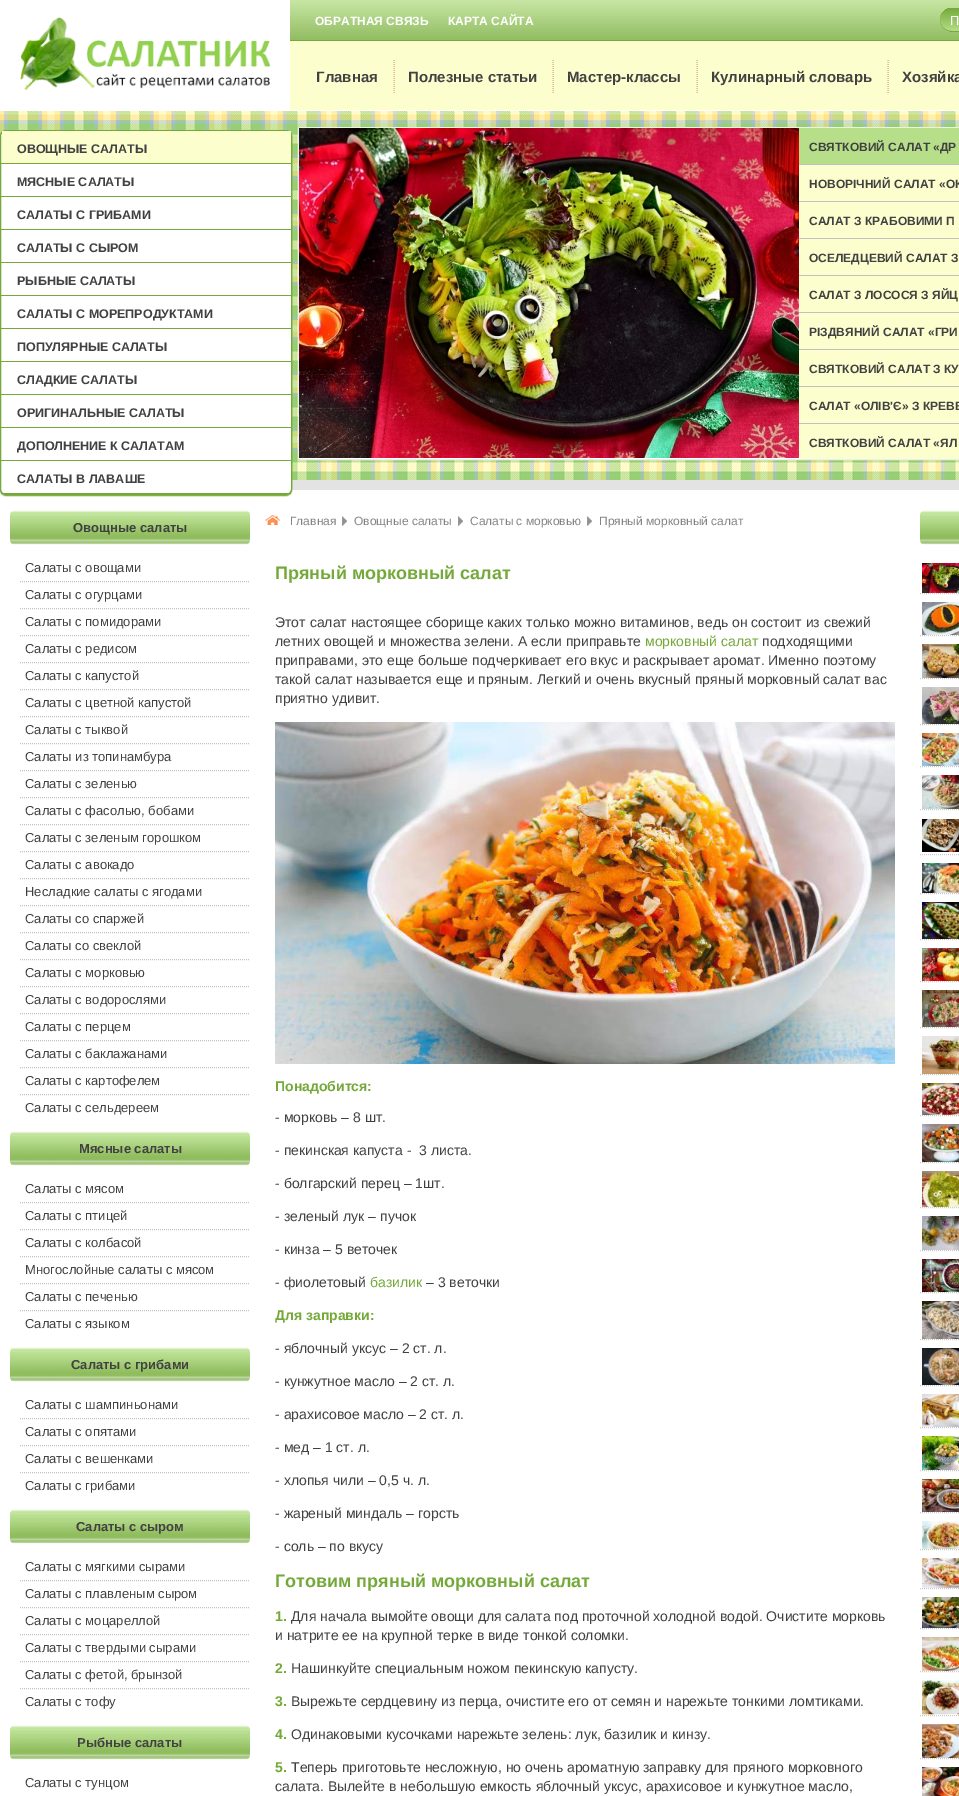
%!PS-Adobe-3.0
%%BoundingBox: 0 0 959 1796
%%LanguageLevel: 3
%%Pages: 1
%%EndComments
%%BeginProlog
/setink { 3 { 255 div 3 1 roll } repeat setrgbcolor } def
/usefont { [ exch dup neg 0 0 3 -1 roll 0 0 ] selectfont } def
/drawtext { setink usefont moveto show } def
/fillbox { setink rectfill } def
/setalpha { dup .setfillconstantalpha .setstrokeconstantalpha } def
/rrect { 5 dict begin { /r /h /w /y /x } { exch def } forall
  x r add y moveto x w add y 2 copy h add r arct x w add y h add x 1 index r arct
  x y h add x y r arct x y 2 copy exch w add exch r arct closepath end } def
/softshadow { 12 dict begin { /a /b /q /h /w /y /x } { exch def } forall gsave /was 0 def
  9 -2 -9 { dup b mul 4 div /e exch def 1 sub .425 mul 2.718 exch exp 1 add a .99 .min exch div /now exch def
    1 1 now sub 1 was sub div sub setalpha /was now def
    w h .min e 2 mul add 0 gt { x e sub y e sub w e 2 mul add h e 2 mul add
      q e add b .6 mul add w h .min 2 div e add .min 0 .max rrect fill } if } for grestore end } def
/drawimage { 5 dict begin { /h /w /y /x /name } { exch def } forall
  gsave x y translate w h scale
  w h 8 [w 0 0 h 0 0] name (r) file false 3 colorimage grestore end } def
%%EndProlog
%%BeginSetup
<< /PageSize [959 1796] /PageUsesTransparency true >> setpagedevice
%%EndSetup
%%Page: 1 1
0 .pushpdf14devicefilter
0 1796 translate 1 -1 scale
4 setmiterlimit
0 0 959 1796 253 254 206 fillbox
gsave 290 0 moveto 959 0 lineto 959 40 lineto 290 40 lineto closepath clip newpath
<< /ShadingType 2 /ColorSpace /DeviceRGB /Coords [480 0 480 40] /Extend [true true] /Function << /FunctionType 2 /Domain [0 1] /C0 [0.78 0.902 0.643] /C1 [0.573 0.741 0.384] /N 1 >> >> shfill grestore
290 40 669 1 116 169 58 fillbox
(ОБРАТНАЯ СВЯЗЬ) 315 25 /LiberationSans-Bold 12 255 255 255 drawtext
(КАРТА САЙТА) 448 25 /LiberationSans-Bold 12 255 255 255 drawtext
gsave 940 8 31 24 12 rrect clip newpath
<< /ShadingType 2 /ColorSpace /DeviceRGB /Coords [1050 8 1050 32] /Extend [true true] /Function << /FunctionType 2 /Domain [0 1] /C0 [0.455 0.663 0.227] /C1 [0.722 0.878 0.549] /N 1 >> >> shfill grestore
118 168 58 setink
940 20 moveto 940 26 945 32 952 32 curveto 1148 32 lineto 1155 32 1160 26 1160 20 curveto 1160 26 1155 31 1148 31 curveto 952 31 lineto 945 31 940 26 940 20 curveto closepath fill
(П) 950 25 /LiberationSans-Regular 13 255 255 255 drawtext
0 0 290 110 255 255 255 fillbox
(assets/img1.rgb) 20 17 250 73 drawimage
(Главная) 316 82 /LiberationSans-Bold 15 65 65 65 drawtext
(assets/img2.rgb) 393 60 2 33 drawimage
(Полезные статьи) 408 82 /LiberationSans-Bold 15 65 65 65 drawtext
(assets/img2.rgb) 552 60 2 33 drawimage
(Мастер-классы) 567 82 /LiberationSans-Bold 15 65 65 65 drawtext
(assets/img2.rgb) 696 60 2 33 drawimage
(Кулинарный словарь) 711 82 /LiberationSans-Bold 15 65 65 65 drawtext
(assets/img2.rgb) 887 60 2 33 drawimage
(Хозяйка) 902 82 /LiberationSans-Bold 15 65 65 65 drawtext
(assets/img3.rgb) 0 110 959 370 drawimage
0 480 959 10 227 227 227 fillbox
0 490 959 1306 255 255 255 fillbox
116 169 58 setink
0 131 292 365 6 0.5 1 softshadow
255 255 255 setink
0.5 130.5 291 364 5.5 rrect gsave fill grestore
116 169 58 setink
stroke
1 163 290 1 116 169 58 fillbox
2 131 289 32 253 254 206 fillbox
(ОВОЩНЫЕ САЛАТЫ) 17 153 /LiberationSans-Bold 12.5 65 65 65 drawtext
1 196 290 1 116 169 58 fillbox
(МЯСНЫЕ САЛАТЫ) 17 186 /LiberationSans-Bold 12.5 65 65 65 drawtext
1 229 290 1 116 169 58 fillbox
(САЛАТЫ С ГРИБАМИ) 17 219 /LiberationSans-Bold 12.5 65 65 65 drawtext
1 262 290 1 116 169 58 fillbox
(САЛАТЫ С СЫРОМ) 17 252 /LiberationSans-Bold 12.5 65 65 65 drawtext
1 295 290 1 116 169 58 fillbox
(РЫБНЫЕ САЛАТЫ) 17 285 /LiberationSans-Bold 12.5 65 65 65 drawtext
1 328 290 1 116 169 58 fillbox
(САЛАТЫ С МОРЕПРОДУКТАМИ) 17 318 /LiberationSans-Bold 12.5 65 65 65 drawtext
1 361 290 1 116 169 58 fillbox
(ПОПУЛЯРНЫЕ САЛАТЫ) 17 351 /LiberationSans-Bold 12.5 65 65 65 drawtext
1 394 290 1 116 169 58 fillbox
(СЛАДКИЕ САЛАТЫ) 17 384 /LiberationSans-Bold 12.5 65 65 65 drawtext
1 427 290 1 116 169 58 fillbox
(ОРИГИНАЛЬНЫЕ САЛАТЫ) 17 417 /LiberationSans-Bold 12.5 65 65 65 drawtext
1 460 290 1 116 169 58 fillbox
(ДОПОЛНЕНИЕ К САЛАТАМ) 17 450 /LiberationSans-Bold 12.5 65 65 65 drawtext
1 493 290 1 116 169 58 fillbox
(САЛАТЫ В ЛАВАШЕ) 17 483 /LiberationSans-Bold 12.5 65 65 65 drawtext
255 255 255 setink
298.5 127.5 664 332 2.5 rrect gsave fill grestore
238 238 238 setink
stroke
(assets/img4.rgb) 299 128 500 330 drawimage
799 128 160 36 183 223 138 fillbox
799 164 160 1 192 192 192 fillbox
(СВЯТКОВИЙ САЛАТ «ДР) 809 151 /LiberationSans-Bold 12 65 65 65 drawtext
799 165 160 36 253 254 206 fillbox
799 201 160 1 192 192 192 fillbox
(НОВОРІЧНИЙ САЛАТ «ОК) 809 188 /LiberationSans-Bold 12 65 65 65 drawtext
799 202 160 36 253 254 206 fillbox
799 238 160 1 192 192 192 fillbox
(САЛАТ З КРАБОВИМИ П) 809 225 /LiberationSans-Bold 12 65 65 65 drawtext
799 239 160 36 253 254 206 fillbox
799 275 160 1 192 192 192 fillbox
(ОСЕЛЕДЦЕВИЙ САЛАТ З) 809 262 /LiberationSans-Bold 12 65 65 65 drawtext
799 276 160 36 253 254 206 fillbox
799 312 160 1 192 192 192 fillbox
(САЛАТ З ЛОСОСЯ З ЯЙЦ) 809 299 /LiberationSans-Bold 12 65 65 65 drawtext
799 313 160 36 253 254 206 fillbox
799 349 160 1 192 192 192 fillbox
(РІЗДВЯНИЙ САЛАТ «ГРИ) 809 336 /LiberationSans-Bold 12 65 65 65 drawtext
799 350 160 36 253 254 206 fillbox
799 386 160 1 192 192 192 fillbox
(СВЯТКОВИЙ САЛАТ З КУ) 809 373 /LiberationSans-Bold 12 65 65 65 drawtext
799 387 160 36 253 254 206 fillbox
799 423 160 1 192 192 192 fillbox
(САЛАТ «ОЛІВ'Є» З КРЕВЕ) 809 410 /LiberationSans-Bold 12 65 65 65 drawtext
799 424 160 35 253 254 206 fillbox
(СВЯТКОВИЙ САЛАТ «ЯЛ) 809 447 /LiberationSans-Bold 12 65 65 65 drawtext
(assets/img5.rgb) 10 510 240 35 drawimage
(Овощные салаты) 73 532 /LiberationSans-Bold 13 65 65 65 drawtext
194 194 194 setink
[1 1] 0 setdash
20 581.5 moveto 250 581.5 lineto stroke
(Салаты с овощами) 25 572 /LiberationSans-Regular 13 65 65 65 drawtext
194 194 194 setink
20 608.5 moveto 250 608.5 lineto stroke
(Салаты с огурцами) 25 599 /LiberationSans-Regular 13 65 65 65 drawtext
194 194 194 setink
20 635.5 moveto 250 635.5 lineto stroke
(Салаты с помидорами) 25 626 /LiberationSans-Regular 13 65 65 65 drawtext
194 194 194 setink
20 662.5 moveto 250 662.5 lineto stroke
(Салаты с редисом) 25 653 /LiberationSans-Regular 13 65 65 65 drawtext
194 194 194 setink
20 689.5 moveto 250 689.5 lineto stroke
(Салаты с капустой) 25 680 /LiberationSans-Regular 13 65 65 65 drawtext
194 194 194 setink
20 716.5 moveto 250 716.5 lineto stroke
(Салаты с цветной капустой) 25 707 /LiberationSans-Regular 13 65 65 65 drawtext
194 194 194 setink
20 743.5 moveto 250 743.5 lineto stroke
(Салаты с тыквой) 25 734 /LiberationSans-Regular 13 65 65 65 drawtext
194 194 194 setink
20 770.5 moveto 250 770.5 lineto stroke
(Салаты из топинамбура) 25 761 /LiberationSans-Regular 13 65 65 65 drawtext
194 194 194 setink
20 797.5 moveto 250 797.5 lineto stroke
(Салаты с зеленью) 25 788 /LiberationSans-Regular 13 65 65 65 drawtext
194 194 194 setink
20 824.5 moveto 250 824.5 lineto stroke
(Салаты с фасолью, бобами) 25 815 /LiberationSans-Regular 13 65 65 65 drawtext
194 194 194 setink
20 851.5 moveto 250 851.5 lineto stroke
(Салаты с зеленым горошком) 25 842 /LiberationSans-Regular 13 65 65 65 drawtext
194 194 194 setink
20 878.5 moveto 250 878.5 lineto stroke
(Салаты с авокадо) 25 869 /LiberationSans-Regular 13 65 65 65 drawtext
194 194 194 setink
20 905.5 moveto 250 905.5 lineto stroke
(Несладкие салаты с ягодами) 25 896 /LiberationSans-Regular 13 65 65 65 drawtext
194 194 194 setink
20 932.5 moveto 250 932.5 lineto stroke
(Салаты со спаржей) 25 923 /LiberationSans-Regular 13 65 65 65 drawtext
194 194 194 setink
20 959.5 moveto 250 959.5 lineto stroke
(Салаты со свеклой) 25 950 /LiberationSans-Regular 13 65 65 65 drawtext
194 194 194 setink
20 986.5 moveto 250 986.5 lineto stroke
(Салаты с морковью) 25 977 /LiberationSans-Regular 13 65 65 65 drawtext
194 194 194 setink
20 1013.5 moveto 250 1013.5 lineto stroke
(Салаты с водорослями) 25 1004 /LiberationSans-Regular 13 65 65 65 drawtext
194 194 194 setink
20 1040.5 moveto 250 1040.5 lineto stroke
(Салаты с перцем) 25 1031 /LiberationSans-Regular 13 65 65 65 drawtext
194 194 194 setink
20 1067.5 moveto 250 1067.5 lineto stroke
(Салаты с баклажанами) 25 1058 /LiberationSans-Regular 13 65 65 65 drawtext
194 194 194 setink
20 1094.5 moveto 250 1094.5 lineto stroke
(Салаты с картофелем) 25 1085 /LiberationSans-Regular 13 65 65 65 drawtext
(Салаты с сельдереем) 25 1112 /LiberationSans-Regular 13 65 65 65 drawtext
(assets/img5.rgb) 10 1131 240 35 drawimage
(Мясные салаты) 79 1153 /LiberationSans-Bold 13 65 65 65 drawtext
194 194 194 setink
20 1202.5 moveto 250 1202.5 lineto stroke
(Салаты с мясом) 25 1193 /LiberationSans-Regular 13 65 65 65 drawtext
194 194 194 setink
20 1229.5 moveto 250 1229.5 lineto stroke
(Салаты с птицей) 25 1220 /LiberationSans-Regular 13 65 65 65 drawtext
194 194 194 setink
20 1256.5 moveto 250 1256.5 lineto stroke
(Салаты с колбасой) 25 1247 /LiberationSans-Regular 13 65 65 65 drawtext
194 194 194 setink
20 1283.5 moveto 250 1283.5 lineto stroke
(Многослойные салаты с мясом) 25 1274 /LiberationSans-Regular 13 65 65 65 drawtext
194 194 194 setink
20 1310.5 moveto 250 1310.5 lineto stroke
(Салаты с печенью) 25 1301 /LiberationSans-Regular 13 65 65 65 drawtext
(Салаты с языком) 25 1328 /LiberationSans-Regular 13 65 65 65 drawtext
(assets/img5.rgb) 10 1347 240 35 drawimage
(Салаты с грибами) 71 1369 /LiberationSans-Bold 13 65 65 65 drawtext
194 194 194 setink
20 1418.5 moveto 250 1418.5 lineto stroke
(Салаты с шампиньонами) 25 1409 /LiberationSans-Regular 13 65 65 65 drawtext
194 194 194 setink
20 1445.5 moveto 250 1445.5 lineto stroke
(Салаты с опятами) 25 1436 /LiberationSans-Regular 13 65 65 65 drawtext
194 194 194 setink
20 1472.5 moveto 250 1472.5 lineto stroke
(Салаты с вешенками) 25 1463 /LiberationSans-Regular 13 65 65 65 drawtext
(Салаты с грибами) 25 1490 /LiberationSans-Regular 13 65 65 65 drawtext
(assets/img6.rgb) 10 1509 240 35 drawimage
(Салаты с сыром) 76 1531 /LiberationSans-Bold 13 65 65 65 drawtext
194 194 194 setink
20 1580.5 moveto 250 1580.5 lineto stroke
(Салаты с мягкими сырами) 25 1571 /LiberationSans-Regular 13 65 65 65 drawtext
194 194 194 setink
20 1607.5 moveto 250 1607.5 lineto stroke
(Салаты с плавленым сыром) 25 1598 /LiberationSans-Regular 13 65 65 65 drawtext
194 194 194 setink
20 1634.5 moveto 250 1634.5 lineto stroke
(Салаты с моцареллой) 25 1625 /LiberationSans-Regular 13 65 65 65 drawtext
194 194 194 setink
20 1661.5 moveto 250 1661.5 lineto stroke
(Салаты с твердыми сырами) 25 1652 /LiberationSans-Regular 13 65 65 65 drawtext
194 194 194 setink
20 1688.5 moveto 250 1688.5 lineto stroke
(Салаты с фетой, брынзой) 25 1679 /LiberationSans-Regular 13 65 65 65 drawtext
(Салаты с тофу) 25 1706 /LiberationSans-Regular 13 65 65 65 drawtext
(assets/img5.rgb) 10 1725 240 35 drawimage
(Рыбные салаты) 77 1747 /LiberationSans-Bold 13 65 65 65 drawtext
(Салаты с тунцом) 25 1787 /LiberationSans-Regular 13 65 65 65 drawtext
(assets/img7.rgb) 265 515 15 10 drawimage
(Главная) 290 525 /LiberationSans-Regular 12 132 132 132 drawtext
(assets/img8.rgb) 342 516 5 10 drawimage
(Овощные салаты) 354 525 /LiberationSans-Regular 12 132 132 132 drawtext
(assets/img8.rgb) 458 516 5 10 drawimage
(Салаты с морковью) 470 525 /LiberationSans-Regular 12 132 132 132 drawtext
(assets/img8.rgb) 587 516 5 10 drawimage
(Пряный морковный салат) 599 525 /LiberationSans-Regular 12 132 132 132 drawtext
(Пряный морковный салат) 275 579 /LiberationSans-Bold 18 116 169 58 drawtext
(Этот салат настоящее сборище каких только можно витаминов, ведь он состоит из свежий) 275 627 /LiberationSans-Regular 14 65 65 65 drawtext
(летних овощей и множества зелени. А если приправьте) 275 646 /LiberationSans-Regular 14 65 65 65 drawtext
(морковный салат) 645 646 /LiberationSans-Regular 14 116 169 58 drawtext
(подходящими) 762 646 /LiberationSans-Regular 14 65 65 65 drawtext
(приправами, это еще больше подчеркивает его вкус и раскрывает аромат. Именно поэтому) 275 665 /LiberationSans-Regular 14 65 65 65 drawtext
(такой салат называется еще и пряным. Легкий и очень вкусный пряный морковный салат вас) 275 684 /LiberationSans-Regular 14 65 65 65 drawtext
(приятно удивит.) 275 703 /LiberationSans-Regular 14 65 65 65 drawtext
(assets/img9.rgb) 275 722 620 342 drawimage
(Понадобится:) 275 1091 /LiberationSans-Bold 14 116 169 58 drawtext
(- морковь – 8 шт.) 275 1122 /LiberationSans-Regular 14 65 65 65 drawtext
(- пекинская капуста -  3 листа.) 275 1155 /LiberationSans-Regular 14 65 65 65 drawtext
(- болгарский перец – 1шт.) 275 1188 /LiberationSans-Regular 14 65 65 65 drawtext
(- зеленый лук – пучок) 275 1221 /LiberationSans-Regular 14 65 65 65 drawtext
(- кинза – 5 веточек) 275 1254 /LiberationSans-Regular 14 65 65 65 drawtext
(- фиолетовый) 275 1287 /LiberationSans-Regular 14 65 65 65 drawtext
(базилик) 370 1287 /LiberationSans-Regular 14 116 169 58 drawtext
(– 3 веточки) 426 1287 /LiberationSans-Regular 14 65 65 65 drawtext
(Для заправки:) 275 1320 /LiberationSans-Bold 14 116 169 58 drawtext
(- яблочный уксус – 2 ст. л.) 275 1353 /LiberationSans-Regular 14 65 65 65 drawtext
(- кунжутное масло – 2 ст. л.) 275 1386 /LiberationSans-Regular 14 65 65 65 drawtext
(- арахисовое масло – 2 ст. л.) 275 1419 /LiberationSans-Regular 14 65 65 65 drawtext
(- мед – 1 ст. л.) 275 1452 /LiberationSans-Regular 14 65 65 65 drawtext
(- хлопья чили – 0,5 ч. л.) 275 1485 /LiberationSans-Regular 14 65 65 65 drawtext
(- жареный миндаль – горсть) 275 1518 /LiberationSans-Regular 14 65 65 65 drawtext
(- соль – по вкусу) 275 1551 /LiberationSans-Regular 14 65 65 65 drawtext
(Готовим пряный морковный салат) 275 1587 /LiberationSans-Bold 18 116 169 58 drawtext
(1.) 275 1621 /LiberationSans-Bold 14 116 169 58 drawtext
(Для начала вымойте овощи для салата под проточной холодной водой. Очистите морковь) 291 1621 /LiberationSans-Regular 14 65 65 65 drawtext
(и натрите ее на крупной терке в виде тонкой соломки.) 275 1640 /LiberationSans-Regular 14 65 65 65 drawtext
(2.) 275 1673 /LiberationSans-Bold 14 116 169 58 drawtext
(Нашинкуйте специальным ножом пекинскую капусту.) 291 1673 /LiberationSans-Regular 14 65 65 65 drawtext
(3.) 275 1706 /LiberationSans-Bold 14 116 169 58 drawtext
(Вырежьте сердцевину из перца, очистите его от семян и нарежьте тонкими ломтиками.) 291 1706 /LiberationSans-Regular 14 65 65 65 drawtext
(4.) 275 1739 /LiberationSans-Bold 14 116 169 58 drawtext
(Одинаковыми кусочками нарежьте зелень: лук, базилик и кинзу.) 291 1739 /LiberationSans-Regular 14 65 65 65 drawtext
(5.) 275 1772 /LiberationSans-Bold 14 116 169 58 drawtext
(Теперь приготовьте несложную, но очень ароматную заправку для пряного морковного) 291 1772 /LiberationSans-Regular 14 65 65 65 drawtext
(салата. Вылейте в небольшую емкость яблочный уксус, арахисовое и кунжутное масло,) 275 1791 /LiberationSans-Regular 14 65 65 65 drawtext
(assets/img10.rgb) 920 510 39 35 drawimage
204 204 204 setink
920 593.5 moveto 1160 593.5 lineto 920 635.5 moveto 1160 635.5 lineto stroke
(assets/img11.rgb) 922 563 37 30 drawimage
(assets/img12.rgb) 922 602 37 33 drawimage
920 678.5 moveto 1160 678.5 lineto 920 724.5 moveto 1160 724.5 lineto stroke
(assets/img13.rgb) 922 644 37 34 drawimage
(assets/img14.rgb) 922 687 37 37 drawimage
920 766.5 moveto 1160 766.5 lineto 920 809.5 moveto 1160 809.5 lineto stroke
(assets/img15.rgb) 922 733 37 33 drawimage
(assets/img16.rgb) 922 775 37 34 drawimage
920 854.5 moveto 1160 854.5 lineto 920 893.5 moveto 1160 893.5 lineto stroke
(assets/img17.rgb) 922 819 37 33 drawimage
(assets/img18.rgb) 922 863 37 30 drawimage
920 939.5 moveto 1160 939.5 lineto 920 981.5 moveto 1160 981.5 lineto stroke
(assets/img19.rgb) 922 902 37 37 drawimage
(assets/img20.rgb) 922 948 37 33 drawimage
920 1027.5 moveto 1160 1027.5 lineto 920 1074.5 moveto 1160 1074.5 lineto stroke
(assets/img21.rgb) 922 990 37 37 drawimage
(assets/img22.rgb) 922 1036 37 38 drawimage
920 1115.5 moveto 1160 1115.5 lineto 920 1162.5 moveto 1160 1162.5 lineto stroke
(assets/img23.rgb) 922 1083 37 32 drawimage
(assets/img24.rgb) 922 1124 37 38 drawimage
920 1207.5 moveto 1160 1207.5 lineto 920 1250.5 moveto 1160 1250.5 lineto stroke
(assets/img25.rgb) 922 1171 37 36 drawimage
(assets/img26.rgb) 922 1216 37 34 drawimage
920 1292.5 moveto 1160 1292.5 lineto 920 1339.5 moveto 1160 1339.5 lineto stroke
(assets/img27.rgb) 922 1259 37 33 drawimage
(assets/img28.rgb) 922 1301 37 38 drawimage
920 1385.5 moveto 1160 1385.5 lineto 920 1427.5 moveto 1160 1427.5 lineto stroke
(assets/img29.rgb) 922 1348 37 37 drawimage
(assets/img30.rgb) 922 1394 37 33 drawimage
920 1470.5 moveto 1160 1470.5 lineto 920 1512.5 moveto 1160 1512.5 lineto stroke
(assets/img31.rgb) 922 1436 37 34 drawimage
(assets/img32.rgb) 922 1479 37 33 drawimage
920 1549.5 moveto 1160 1549.5 lineto 920 1588.5 moveto 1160 1588.5 lineto stroke
(assets/img33.rgb) 922 1521 37 28 drawimage
(assets/img34.rgb) 922 1558 37 30 drawimage
920 1628.5 moveto 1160 1628.5 lineto 920 1671.5 moveto 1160 1671.5 lineto stroke
(assets/img35.rgb) 922 1597 37 31 drawimage
(assets/img36.rgb) 922 1637 37 34 drawimage
920 1715.5 moveto 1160 1715.5 lineto 920 1758.5 moveto 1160 1758.5 lineto stroke
(assets/img37.rgb) 922 1680 37 35 drawimage
(assets/img38.rgb) 922 1724 37 34 drawimage
(assets/img39.rgb) 922 1767 37 29 drawimage
.poppdf14devicefilter showpage
%%EOF
